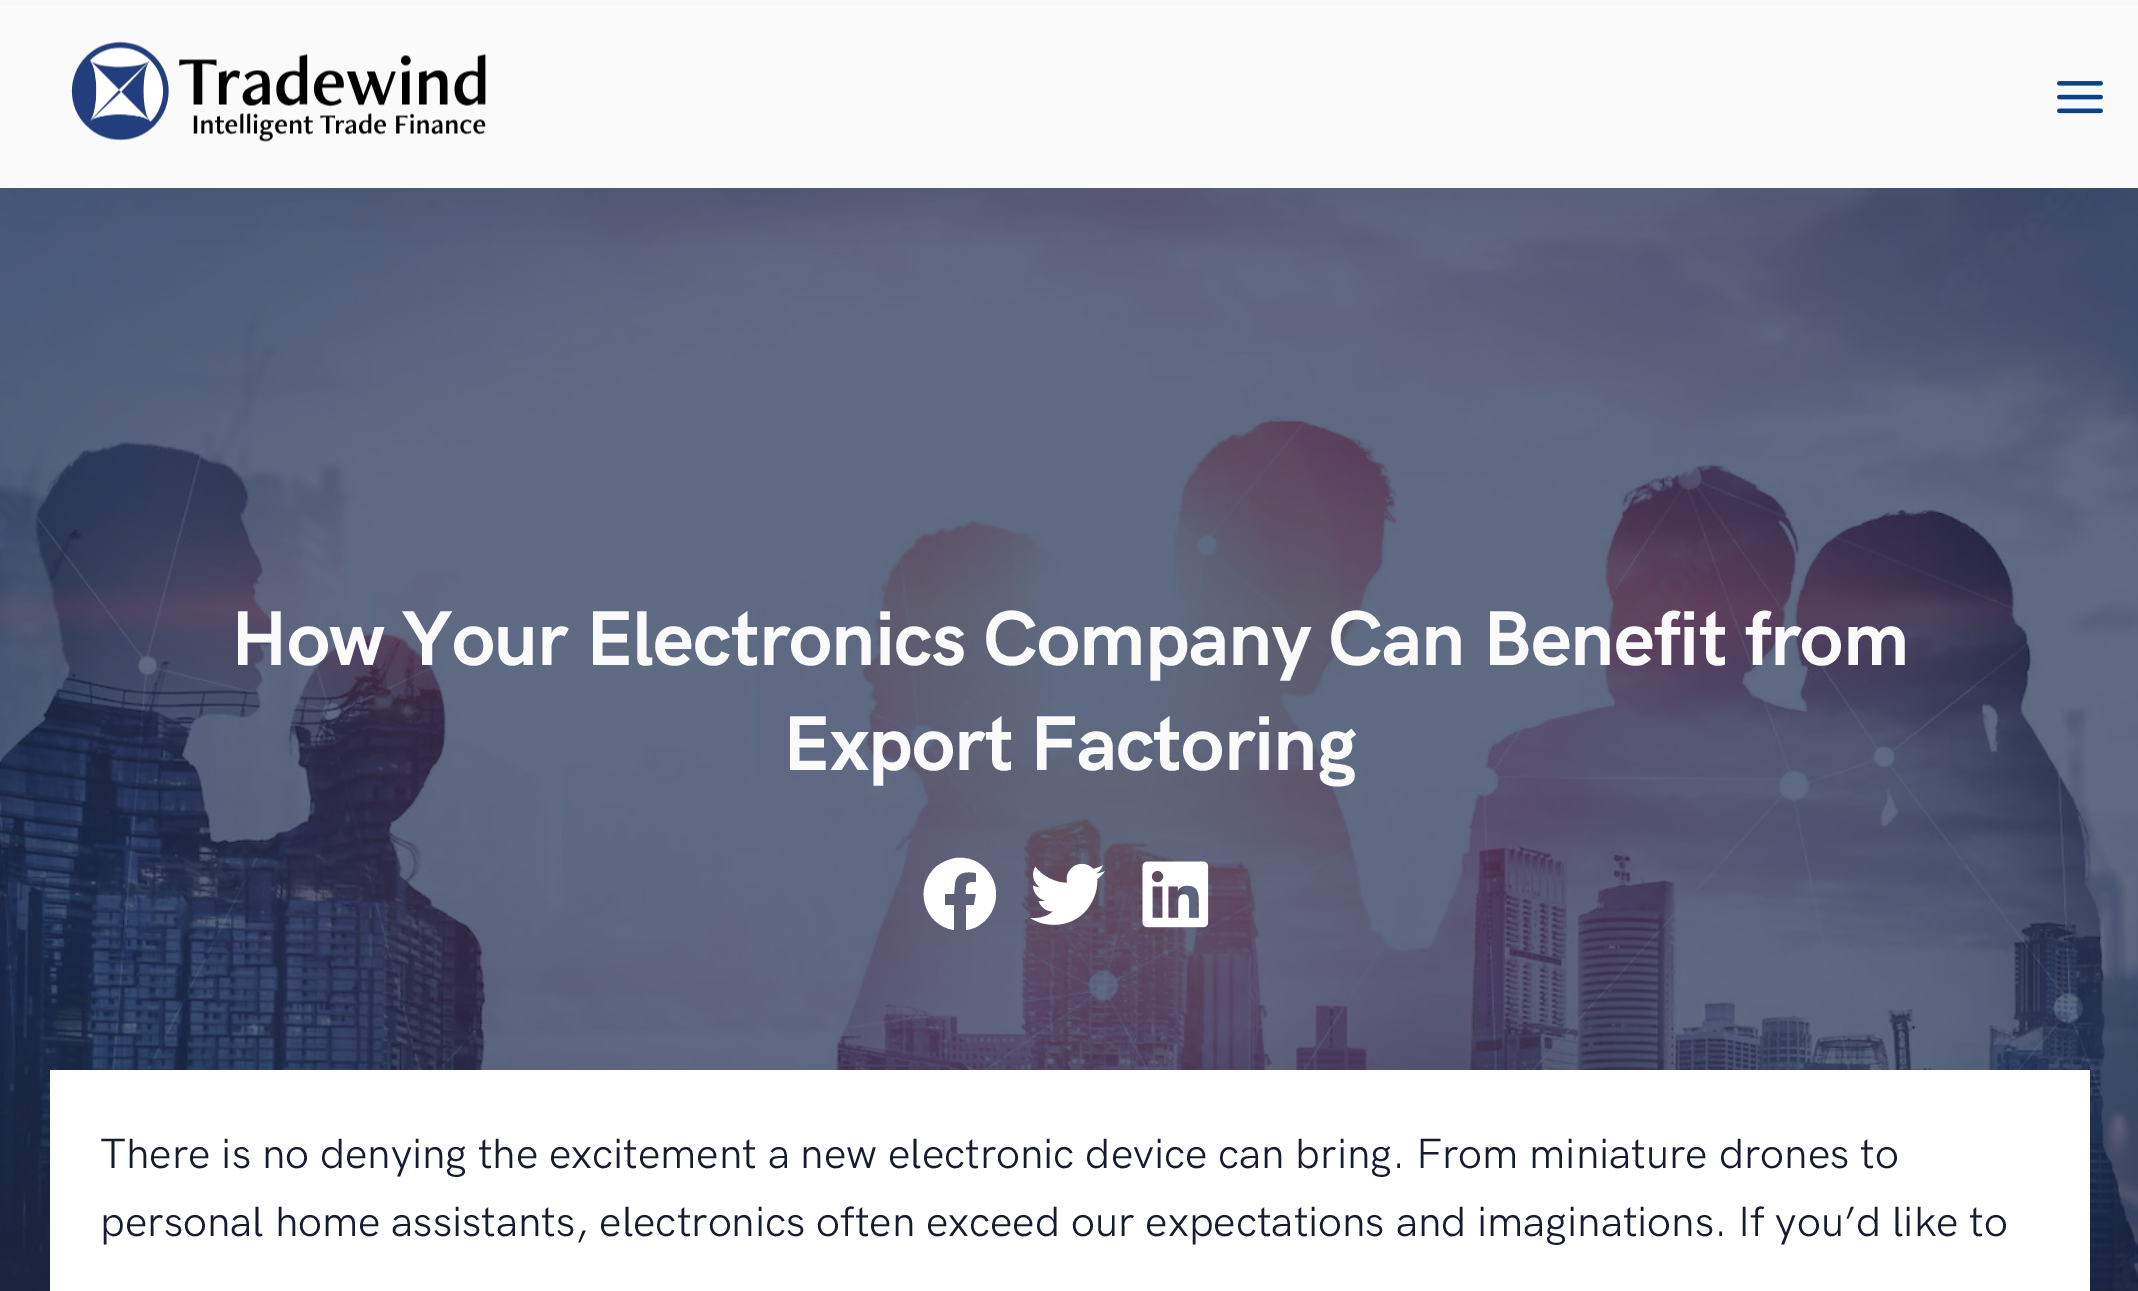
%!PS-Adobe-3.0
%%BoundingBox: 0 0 2138 1291
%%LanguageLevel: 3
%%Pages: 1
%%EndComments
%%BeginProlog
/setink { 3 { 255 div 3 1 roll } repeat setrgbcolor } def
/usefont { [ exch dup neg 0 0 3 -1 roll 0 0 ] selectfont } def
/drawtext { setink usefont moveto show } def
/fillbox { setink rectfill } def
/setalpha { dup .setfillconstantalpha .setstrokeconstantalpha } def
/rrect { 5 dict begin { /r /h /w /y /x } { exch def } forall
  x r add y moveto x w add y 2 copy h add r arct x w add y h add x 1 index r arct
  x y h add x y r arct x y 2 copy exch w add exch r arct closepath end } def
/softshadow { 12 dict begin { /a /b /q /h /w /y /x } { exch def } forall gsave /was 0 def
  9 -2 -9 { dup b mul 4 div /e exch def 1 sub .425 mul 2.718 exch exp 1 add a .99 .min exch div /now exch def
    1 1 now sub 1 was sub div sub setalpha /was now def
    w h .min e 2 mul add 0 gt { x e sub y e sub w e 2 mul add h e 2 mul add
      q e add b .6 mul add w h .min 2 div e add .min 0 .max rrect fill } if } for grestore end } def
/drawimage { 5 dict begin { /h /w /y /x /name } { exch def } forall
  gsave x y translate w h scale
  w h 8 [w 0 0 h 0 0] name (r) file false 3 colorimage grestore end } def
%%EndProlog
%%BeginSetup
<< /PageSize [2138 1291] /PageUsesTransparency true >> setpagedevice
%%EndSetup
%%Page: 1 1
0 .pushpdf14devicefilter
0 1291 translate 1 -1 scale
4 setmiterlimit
0 0 2138 1291 255 255 255 fillbox
(assets/img3.rgb) 0 188 2138 1103 drawimage
22 28 45 setink
0 20 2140 188 0 30 0.1 softshadow
0 6 2138 182 250 250 250 fillbox
(assets/img1.rgb) 71 41 415 101 drawimage
(assets/img2.rgb) 2057 81 46 33 drawimage
/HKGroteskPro-Bold 78 usefont
231 665 moveto -0.8 0 (How Your Electronics Company Can Benefit from) ashow
783 770 moveto -0.8 0 (Export Factoring) ashow
255 255 255 setink
996 894 moveto 996 912 983 928 966 930 curveto 966 905 lineto 974 905 lineto 976 894 lineto 966 894 lineto 966 884 965 882 976 882 curveto 976 873 lineto 967 871 956 872 955 883 curveto 954 894 lineto 945 894 lineto 945 905 lineto 954 905 lineto 954 930 lineto 923 925 913 886 937 866 curveto 943 862 949 859 956 858 curveto 965 857 973 859 980 864 curveto 990 871 996 882 996 894 curveto closepath fill
(assets/img4.rgb) 1030 863 75 62 drawimage
(assets/img5.rgb) 1142 861 67 67 drawimage
50 1070 2040 221 255 255 255 fillbox
(There is no denying the excitement a new electronic device can bring. From miniature drones to) 100 1168 /HKGroteskPro-Regular 42.5 22 28 45 drawtext
(personal home assistants, electronics often exceed our expectations and imaginations. If you’d like to) 100 1236 /HKGroteskPro-Regular 42.5 22 28 45 drawtext
.poppdf14devicefilter showpage
%%EOF
